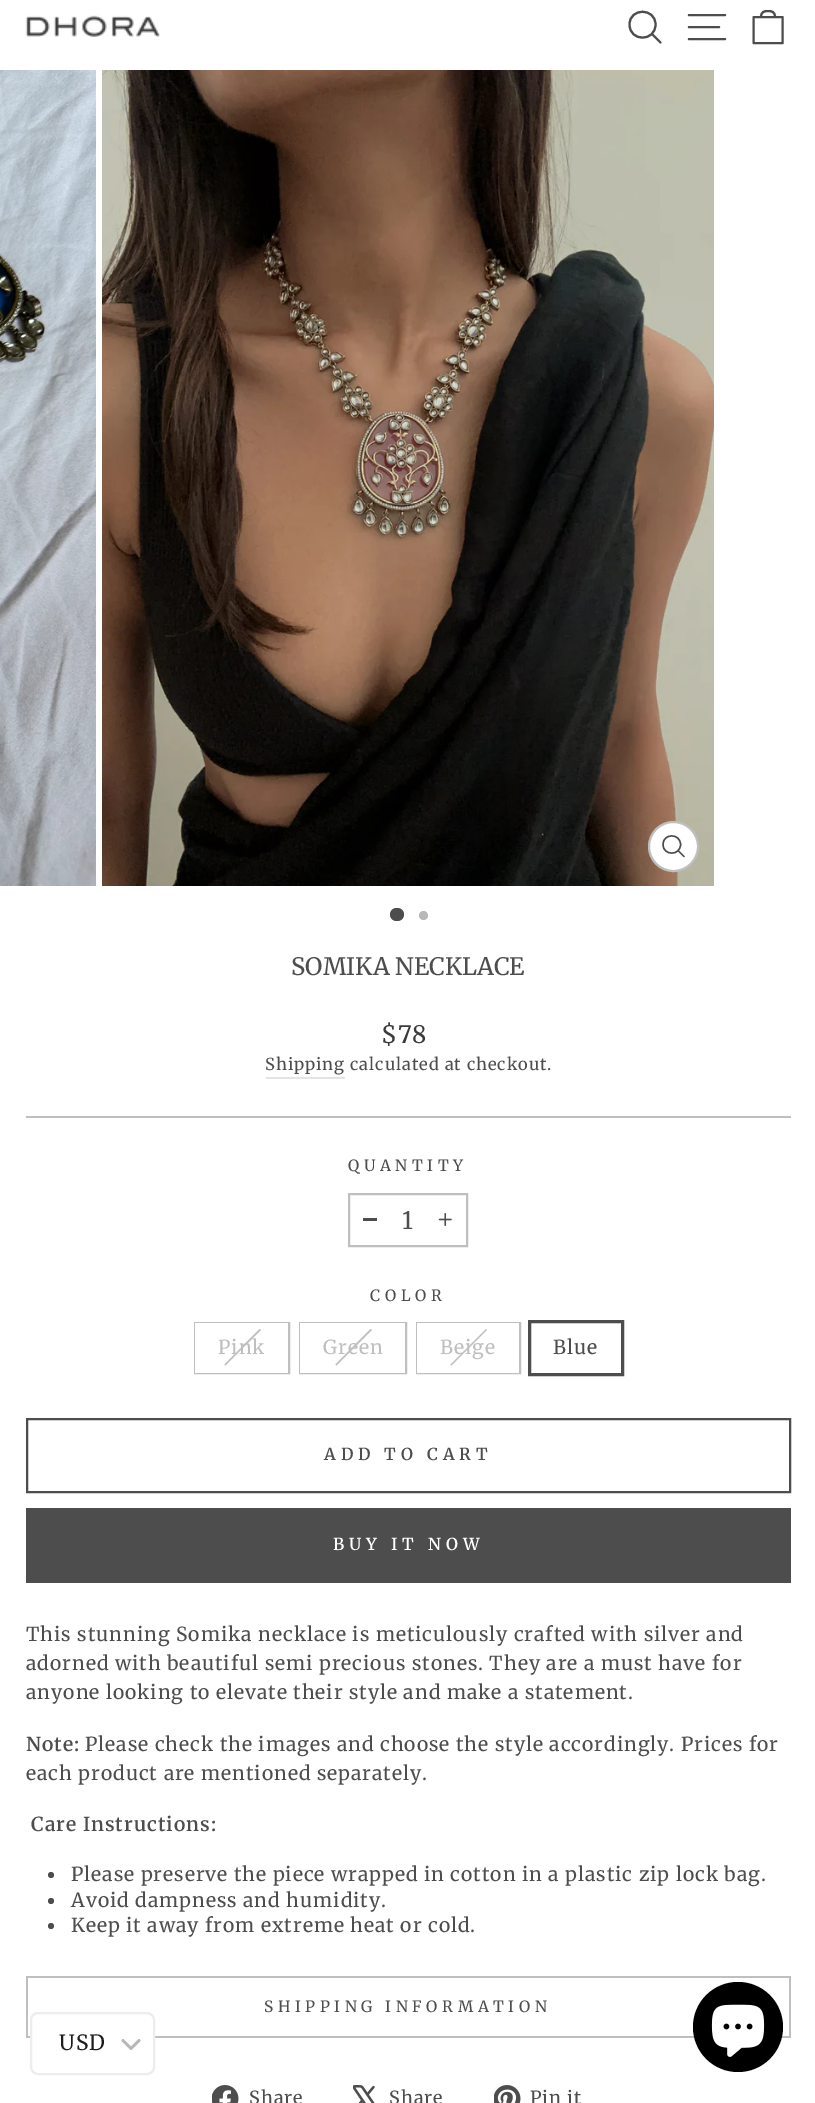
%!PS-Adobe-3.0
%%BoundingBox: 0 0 815 2103
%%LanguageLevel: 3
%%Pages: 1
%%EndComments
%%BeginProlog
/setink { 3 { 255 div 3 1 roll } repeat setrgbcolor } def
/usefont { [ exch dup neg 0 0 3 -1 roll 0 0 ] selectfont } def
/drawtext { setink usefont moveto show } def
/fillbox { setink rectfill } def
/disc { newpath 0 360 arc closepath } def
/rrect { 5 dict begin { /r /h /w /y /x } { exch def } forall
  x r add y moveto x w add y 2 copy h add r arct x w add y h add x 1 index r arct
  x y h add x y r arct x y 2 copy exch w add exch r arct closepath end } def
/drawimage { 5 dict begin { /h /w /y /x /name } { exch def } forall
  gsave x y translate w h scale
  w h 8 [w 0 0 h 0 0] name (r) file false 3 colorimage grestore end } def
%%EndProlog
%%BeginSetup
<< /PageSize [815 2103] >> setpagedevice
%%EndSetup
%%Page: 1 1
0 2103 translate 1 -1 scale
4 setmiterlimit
0 0 815 2103 255 255 255 fillbox
(assets/img1.rgb) 25 15 135 22 drawimage
77 77 77 setink
2.1 setlinewidth
1 setlinecap
1 setlinejoin
655.5 24.5 moveto 655.5 42 629.5 42 629.5 24.5 curveto 629.5 7.5 655.5 7.5 655.5 24.5 curveto closepath 660.5 42.5 moveto 652 34 lineto stroke
689 15 moveto 725 15 lineto 689 27 moveto 719 27 lineto 689 39 moveto 725 39 lineto stroke
753.5 17 moveto 782.5 17 lineto 782.5 43 lineto 753.5 43 lineto closepath 761 17 moveto 761 12 764 11 768 11 curveto 772 11 775 12 775 17 curveto stroke
(assets/img2.rgb) 0 70 96 816 drawimage
(assets/img3.rgb) 102 70 612 816 drawimage
255 255 255 setink
673.5 846.5 24.5 disc gsave fill grestore
191 191 191 setink
2 setlinewidth
0 setlinecap
0 setlinejoin
stroke
77 77 77 setink
1.4 setlinewidth
1 setlinecap
1 setlinejoin
680.5 844.5 moveto 680.5 856 663 856 663 844.5 curveto 663 833 680.5 833 680.5 844.5 curveto closepath 684 856.5 moveto 678 850.5 lineto stroke
390 908 14 13 6.5 rrect fill
184 184 184 setink
423.5 915.5 4.5 disc fill
(SOMIKA NECKLACE) 291 975 /Merriweather-Regular 24 77 77 77 drawtext
58 58 58 setink
381 1043 moveto 0.97 0 ($78) ashow
266 1077 79 2 228 228 228 fillbox
/Merriweather-Regular 16.5 usefont
77 77 77 setink
265 1070 moveto 0.97 0 (Shipping) ashow
350 1070 moveto 0.97 0 (calculated at checkout.) ashow
26 1116 765 2 191 191 191 fillbox
/Merriweather-Regular 15.5 usefont
77 77 77 setink
348 1171 moveto 4.6 0 (QUANTITY) ashow
191 191 191 setink
2 setlinewidth
0 setlinecap
0 setlinejoin
349 1194 118 52 rectstroke
363 1218 14 3 77 77 77 fillbox
/Merriweather-Regular 24 usefont
402 1229 moveto 1 0 (1) ashow
(assets/img4.rgb) 438 1213 14 13 drawimage
/Merriweather-Regular 15.5 usefont
370 1301 moveto 4.6 0 (COLOR) ashow
191 191 191 setink
195 1323 94 50 rectstroke
195 1323 93 50 255 255 255 fillbox
191 191 191 setink
259.5 1329 moveto 261 1330 lineto 225.5 1365.5 lineto 224.5 1364.5 lineto closepath fill
/Merriweather-Regular 19.3 usefont
218 1354 moveto 0.97 0 (Pink) ashow
300 1323 106 50 rectstroke
300 1323 105 50 255 255 255 fillbox
191 191 191 setink
370.5 1329 moveto 372 1330 lineto 336.5 1365.5 lineto 335.5 1364.5 lineto closepath fill
323 1354 moveto 0.97 0 (Green) ashow
417 1323 103 50 rectstroke
417 1323 102 50 255 255 255 fillbox
191 191 191 setink
486 1329 moveto 487 1330 lineto 451.5 1365.5 lineto 450.5 1364.5 lineto closepath fill
440 1354 moveto 0.97 0 (Beige) ashow
77 77 77 setink
3 setlinewidth
529.5 1321.5 93 53 rectstroke
553 1354 moveto 0.97 0 (Blue) ashow
2 setlinewidth
27 1419 763 73 rectstroke
/Merriweather-SemiBold 16.5 usefont
324 1460 moveto 5 0 (ADD TO CART) ashow
26 1508 765 75 77 77 77 fillbox
255 255 255 setink
333 1550 moveto 5 0 (BUY IT NOW) ashow
/Merriweather-Regular 19.3 usefont
77 77 77 setink
26 1641 moveto 0.97 0 (This stunning Somika necklace is meticulously crafted with silver and) ashow
26 1670 moveto 0.97 0 (adorned with beautiful semi precious stones. They are a must have for) ashow
26 1699 moveto 0.97 0 (anyone looking to elevate their style and make a statement.) ashow
/Merriweather-SemiBold 19.3 usefont
26 1751 moveto 0.97 0 (Note:) ashow
/Merriweather-Regular 19.3 usefont
85 1751 moveto 0.97 0 (Please check the images and choose the style accordingly. Prices for) ashow
26 1780 moveto 0.97 0 (each product are mentioned separately.) ashow
/Merriweather-SemiBold 19.3 usefont
31 1831 moveto 0.97 0 (Care Instructions:) ashow
51 1875 3 disc fill
/Merriweather-Regular 19.3 usefont
71 1881 moveto 0.97 0 (Please preserve the piece wrapped in cotton in a plastic zip lock bag.) ashow
51 1901 3 disc fill
71 1907 moveto 0.97 0 (Avoid dampness and humidity.) ashow
51 1926 3 disc fill
71 1932 moveto 0.97 0 (Keep it away from extreme heat or cold.) ashow
26 2036 765 2 191 191 191 fillbox
26 1976 765 2 191 191 191 fillbox
789 1976 2 60 191 191 191 fillbox
26 1976 2 60 191 191 191 fillbox
/Merriweather-Regular 15.5 usefont
77 77 77 setink
264 2012 moveto 4.6 0 (SHIPPING INFORMATION) ashow
(assets/img5.rgb) 212 2085 27 18 drawimage
/Merriweather-Regular 18 usefont
249 2104 moveto 0.97 0 (Share) ashow
(assets/img6.rgb) 353 2085 22 18 drawimage
389 2104 moveto 0.97 0 (Share) ashow
(assets/img7.rgb) 494 2085 27 18 drawimage
530 2104 moveto 0.97 0 (Pin it) ashow
255 255 255 setink
31 2013 123 61 7 rrect gsave fill grestore
237 237 237 setink
stroke
/Merriweather-Regular 21 usefont
30 30 30 setink
59 2050 moveto 0.97 0 (USD) ashow
183 183 183 setink
2.7 setlinewidth
1 setlinecap
1 setlinejoin
123 2040.5 moveto 131 2048.5 lineto 139 2040.5 lineto stroke
0 0 0 setink
738 2027 45 disc fill
(assets/img8.rgb) 711 2004 54 53 drawimage
showpage
%%EOF
